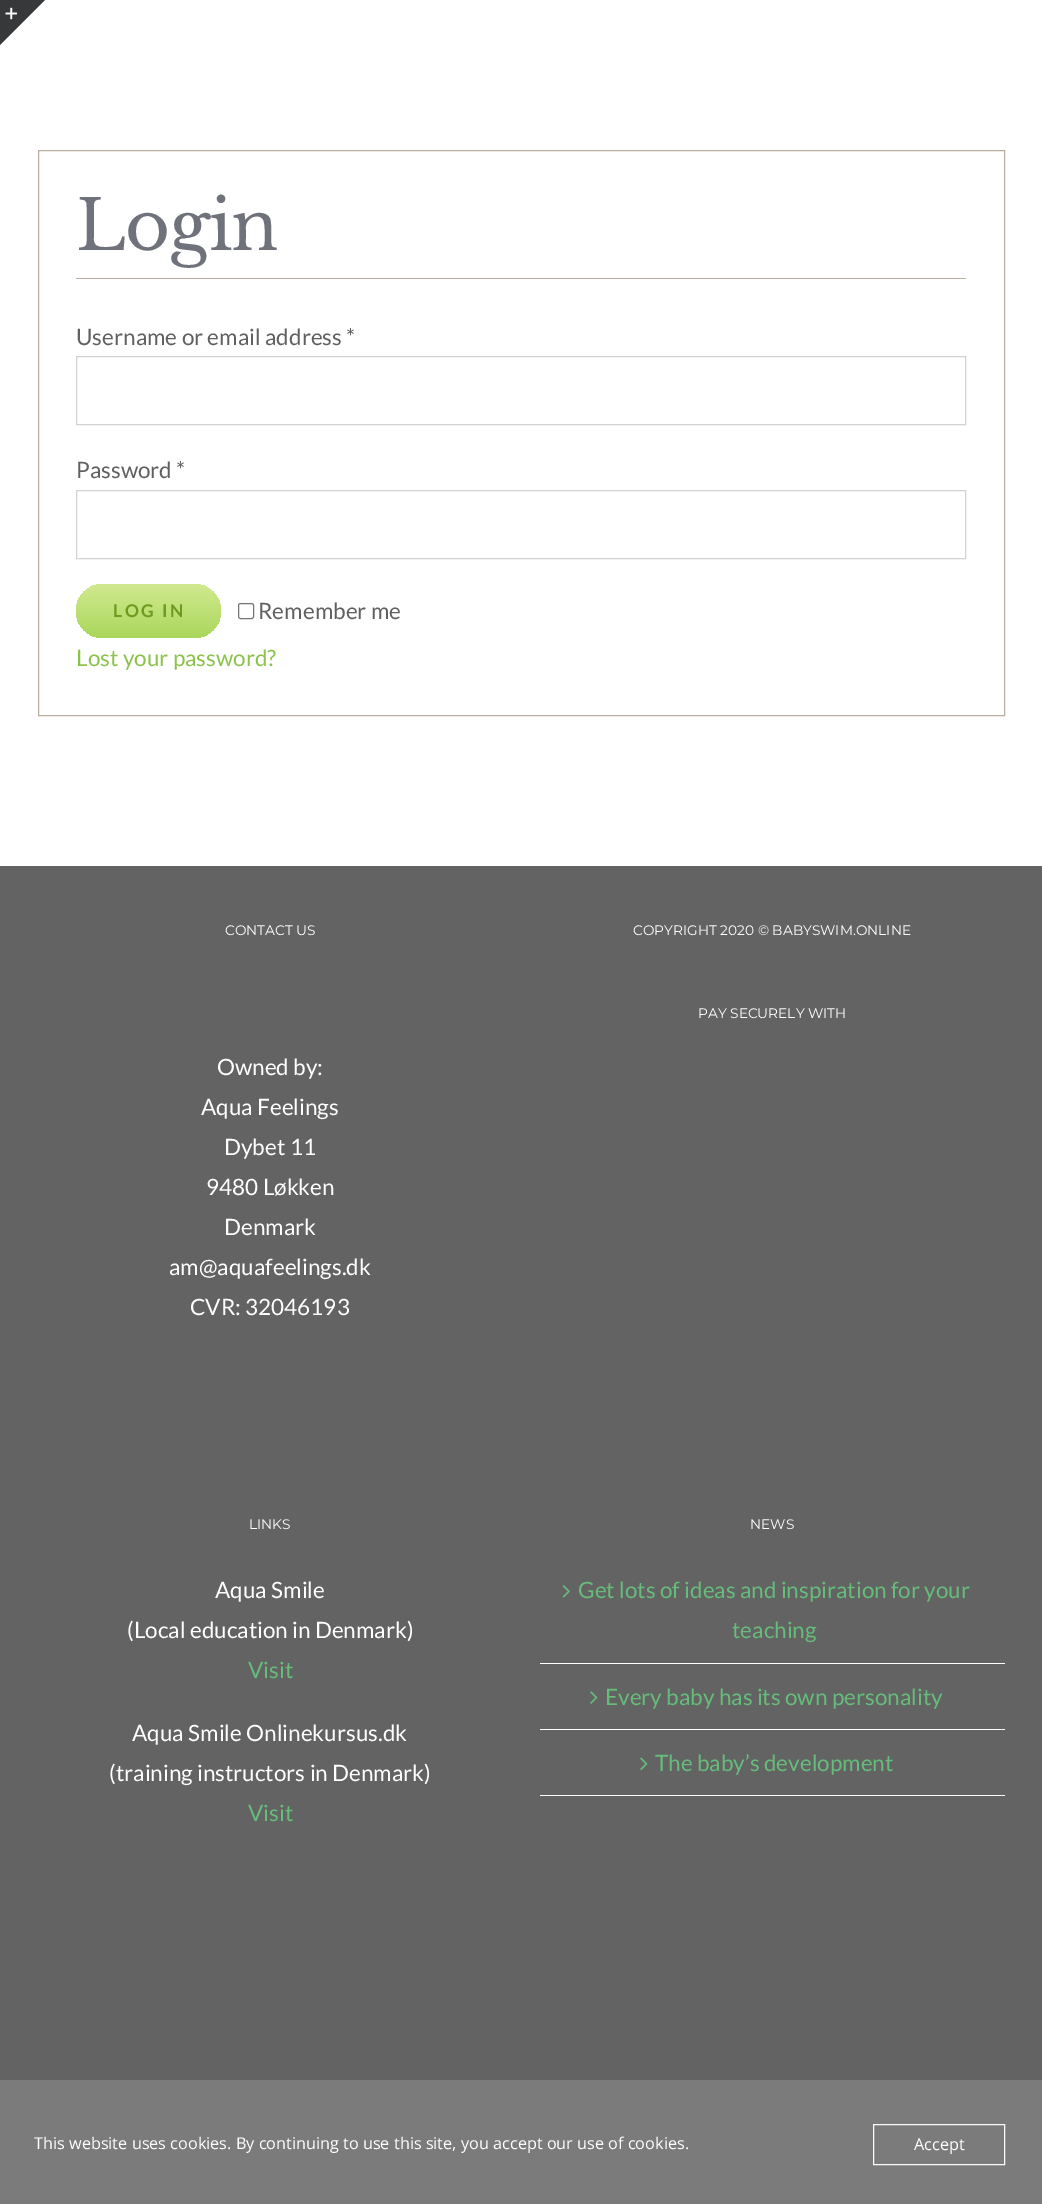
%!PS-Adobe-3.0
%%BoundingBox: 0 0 1042 2204
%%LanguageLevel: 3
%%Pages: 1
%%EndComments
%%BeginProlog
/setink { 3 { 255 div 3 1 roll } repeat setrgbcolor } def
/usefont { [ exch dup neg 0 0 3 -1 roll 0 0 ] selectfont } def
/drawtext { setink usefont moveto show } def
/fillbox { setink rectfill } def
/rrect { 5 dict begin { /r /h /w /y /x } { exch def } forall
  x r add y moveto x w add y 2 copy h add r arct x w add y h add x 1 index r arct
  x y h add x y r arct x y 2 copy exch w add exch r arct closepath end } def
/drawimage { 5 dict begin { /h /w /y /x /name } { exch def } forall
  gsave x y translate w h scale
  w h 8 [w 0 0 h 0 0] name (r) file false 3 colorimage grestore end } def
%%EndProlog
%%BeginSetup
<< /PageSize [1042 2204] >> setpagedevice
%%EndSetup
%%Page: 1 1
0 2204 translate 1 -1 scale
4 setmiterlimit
0 0 1042 2204 255 255 255 fillbox
54 56 57 setink
0 0 moveto 45 0 lineto 0 45 lineto closepath fill
(assets/img1.rgb) 5 7 12 13 drawimage
185 175 161 setink
38.5 150.5 966 565 rectstroke
76 278 890 1 185 175 161 fillbox
/LibreBaskerville-Regular 69 usefont
111 114 123 setink
76 250 moveto -1.25 0 (Login) ashow
(Username or email address *) 76 345 /Lato-Regular 22.5 96 96 96 drawtext
210 210 210 setink
76.5 356.5 889 68 rectstroke
(Password *) 76 478 /Lato-Regular 22.5 96 96 96 drawtext
210 210 210 setink
76.5 490.5 889 68 rectstroke
gsave 76 584 145 54 27 rrect clip newpath
<< /ShadingType 2 /ColorSpace /DeviceRGB /Coords [149 584 149 638] /Extend [true true] /Function << /FunctionType 2 /Domain [0 1] /C0 [0.82 0.914 0.565] /C1 [0.667 0.843 0.357] /N 1 >> >> shfill grestore
/Lato-Bold 17.5 usefont
110 154 31 setink
113 617 moveto 2.5 0 (LOG IN) ashow
118 118 118 setink
238.5 603.5 15 15 2 rrect stroke
(Remember me) 258 619 /Lato-Regular 22.5 96 96 96 drawtext
(Lost your password?) 76 666 /Lato-Regular 22.5 139 195 74 drawtext
0 866 1042 1214 99 99 99 fillbox
0 2080 1042 124 123 123 123 fillbox
(CONTACT US) 225 935 /Montserrat-Thin 13.75 255 255 255 drawtext
(Owned by:) 217 1075 /Lato-Regular 22.5 255 255 255 drawtext
(Aqua Feelings) 201 1115 /Lato-Regular 22.5 255 255 255 drawtext
(Dybet 11) 224 1155 /Lato-Regular 22.5 255 255 255 drawtext
(9480 Løkken) 206 1195 /Lato-Regular 22.5 255 255 255 drawtext
(Denmark) 224 1235 /Lato-Regular 22.5 255 255 255 drawtext
(am@aquafeelings.dk) 169 1275 /Lato-Regular 22.5 255 255 255 drawtext
(CVR: 32046193) 190 1315 /Lato-Regular 22.5 255 255 255 drawtext
(COPYRIGHT 2020 © BABYSWIM.ONLINE) 633 935 /Montserrat-Thin 13.75 255 255 255 drawtext
(PAY SECURELY WITH) 698 1018 /Montserrat-Thin 13.75 255 255 255 drawtext
(LINKS) 249 1529 /Montserrat-Thin 13.75 255 255 255 drawtext
(Aqua Smile) 215 1598 /Lato-Regular 22.5 255 255 255 drawtext
(\(Local education in Denmark\)) 127 1638 /Lato-Regular 22.5 255 255 255 drawtext
(Visit) 248 1678 /Lato-Regular 22.5 101 188 123 drawtext
(Aqua Smile Onlinekursus.dk) 132 1741 /Lato-Regular 22.5 255 255 255 drawtext
(\(training instructors in Denmark\)) 109 1781 /Lato-Regular 22.5 255 255 255 drawtext
(Visit) 248 1821 /Lato-Regular 22.5 101 188 123 drawtext
(NEWS) 750 1529 /Montserrat-Thin 13.75 255 255 255 drawtext
540 1663 465 1 255 255 255 fillbox
(assets/img2.rgb) 562 1585 8 13 drawimage
(Get lots of ideas and inspiration for your) 578 1598 /Lato-Regular 22.5 101 188 123 drawtext
(teaching) 732 1638 /Lato-Regular 22.5 101 188 123 drawtext
540 1729 465 1 255 255 255 fillbox
(assets/img3.rgb) 590 1691 8 13 drawimage
(Every baby has its own personality) 605 1705 /Lato-Regular 22.5 101 188 123 drawtext
540 1795 465 1 255 255 255 fillbox
(assets/img4.rgb) 640 1757 8 13 drawimage
(The baby’s development) 655 1771 /Lato-Regular 22.5 101 188 123 drawtext
(This website uses cookies. By continuing to use this site, you accept our use of cookies.) 34 2149 /OpenSans-Regular 16.25 255 255 255 drawtext
250 250 250 setink
873.5 2124.5 131 40 rectstroke
(Accept) 914 2150 /OpenSans-Regular 16.25 255 255 255 drawtext
showpage
%%EOF
